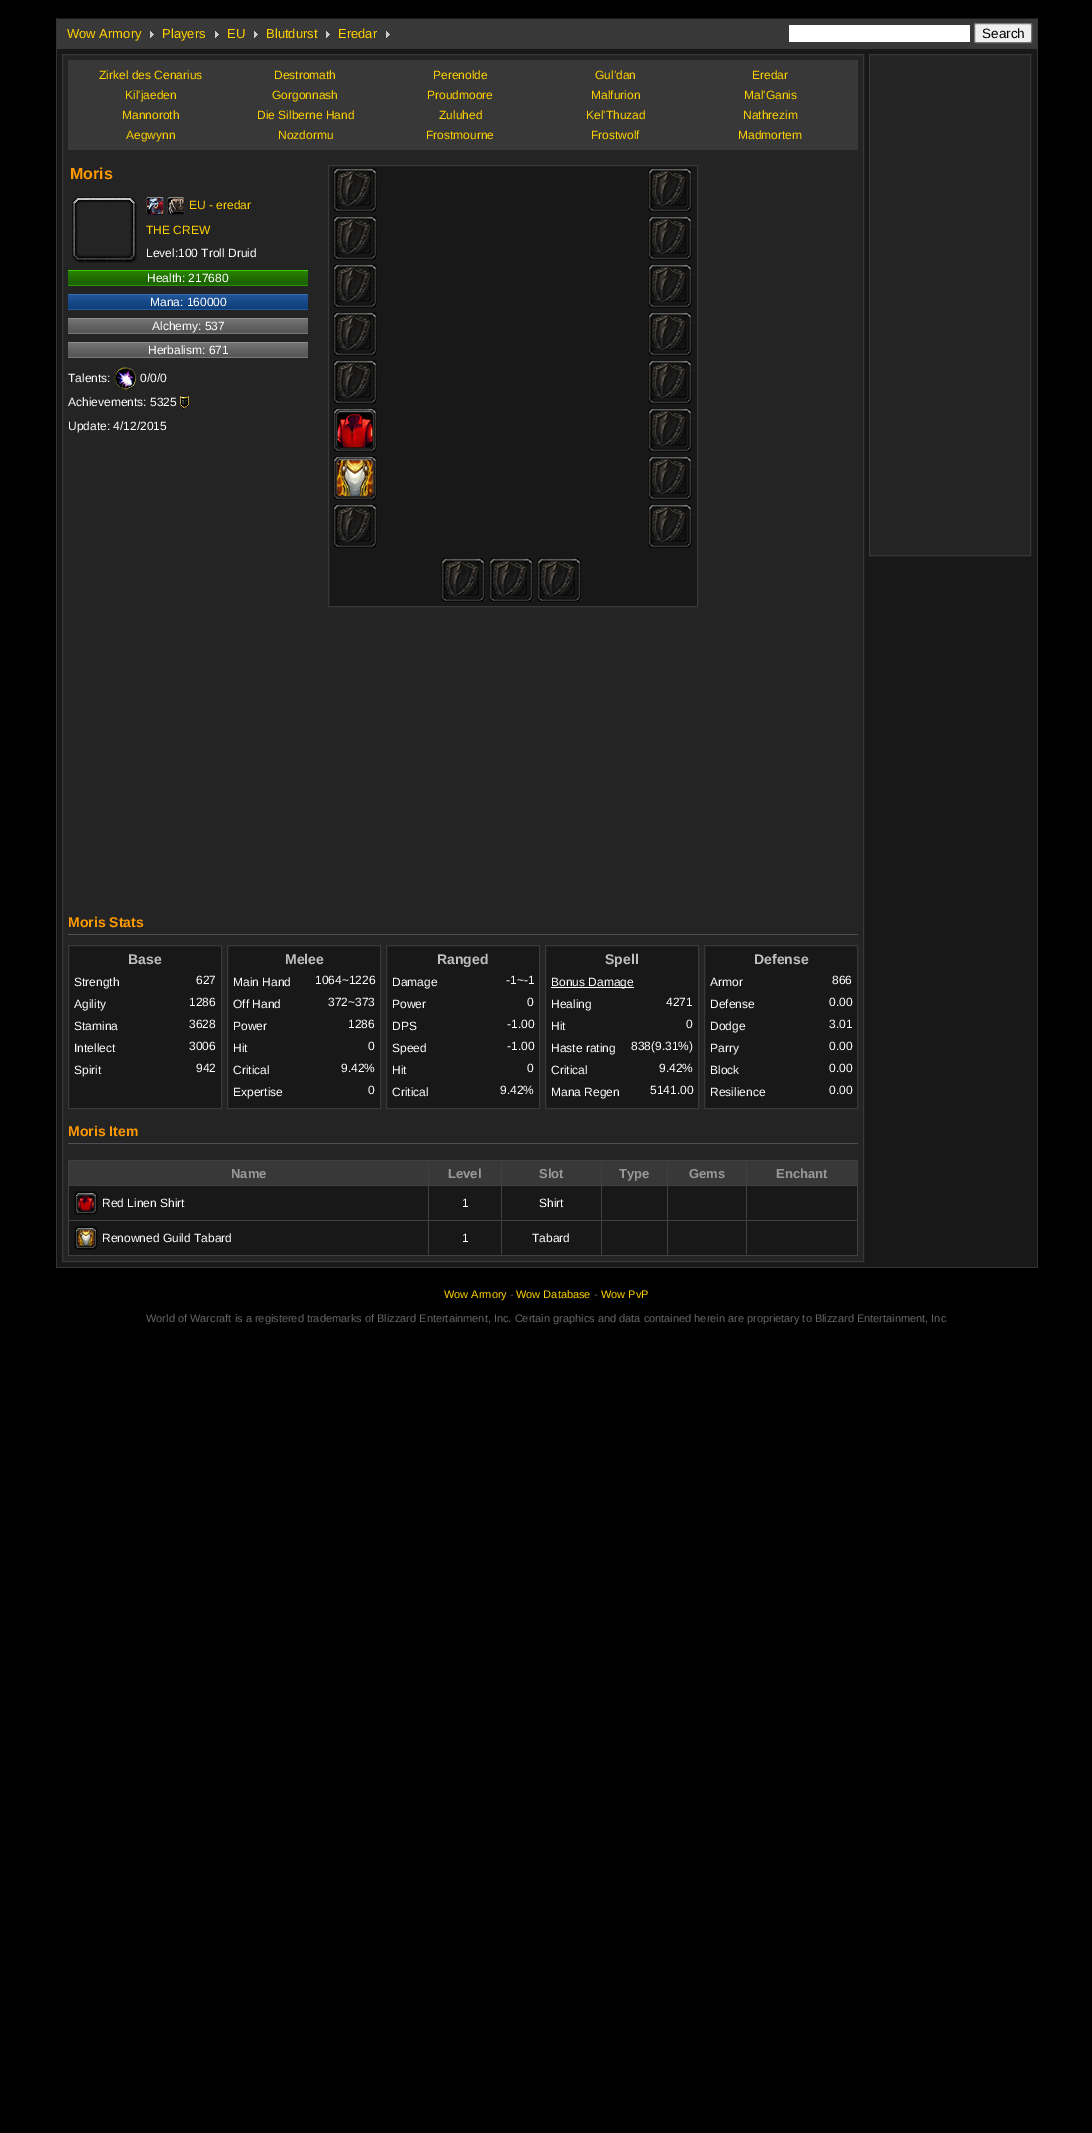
%!PS-Adobe-3.0
%%BoundingBox: 0 0 1092 2133
%%LanguageLevel: 3
%%Pages: 1
%%EndComments
%%BeginProlog
/setink { 3 { 255 div 3 1 roll } repeat setrgbcolor } def
/usefont { [ exch dup neg 0 0 3 -1 roll 0 0 ] selectfont } def
/drawtext { setink usefont moveto show } def
/fillbox { setink rectfill } def
/rrect { 5 dict begin { /r /h /w /y /x } { exch def } forall
  x r add y moveto x w add y 2 copy h add r arct x w add y h add x 1 index r arct
  x y h add x y r arct x y 2 copy exch w add exch r arct closepath end } def
/drawimage { 5 dict begin { /h /w /y /x /name } { exch def } forall
  gsave x y translate w h scale
  w h 8 [w 0 0 h 0 0] name (r) file false 3 colorimage grestore end } def
%%EndProlog
%%BeginSetup
<< /PageSize [1092 2133] >> setpagedevice
%%EndSetup
%%Page: 1 1
0 2133 translate 1 -1 scale
4 setmiterlimit
0 0 1092 2133 0 0 0 fillbox
57 49 980 1218 24 24 24 fillbox
1037 18 1 1250 51 51 51 fillbox
56 1267 982 1 51 51 51 fillbox
56 18 1 1250 51 51 51 fillbox
57 19 980 30 56 56 56 fillbox
57 18 980 1 24 24 24 fillbox
(assets/img1.rgb) 150 31 4 7 drawimage
(Wow Armory) 67 38 /LiberationSans-Regular 13 255 209 0 drawtext
(assets/img1.rgb) 215 31 4 7 drawimage
(Players) 162 38 /LiberationSans-Regular 13 255 209 0 drawtext
(assets/img1.rgb) 254 31 4 7 drawimage
(EU) 227 38 /LiberationSans-Regular 13 255 209 0 drawtext
(assets/img1.rgb) 326 31 4 7 drawimage
(Blutdurst) 266 38 /LiberationSans-Regular 13 255 209 0 drawtext
(assets/img1.rgb) 386 31 4 7 drawimage
(Eredar) 338 38 /LiberationSans-Regular 13 255 209 0 drawtext
789 25 181 17 255 255 255 fillbox
239 239 239 setink
974.5 23.5 57 19 1.5 rrect gsave fill grestore
118 118 118 setink
stroke
(Search) 982 38 /LiberationSans-Regular 13.5 0 0 0 drawtext
36 36 36 setink
62.5 54.5 moveto 863.5 54.5 lineto 863.5 1261.5 lineto 62.5 1261.5 lineto closepath gsave fill grestore
56 56 56 setink
stroke
68 60 790 90 56 56 56 fillbox
(Zirkel des Cenarius) 99 79 /LiberationSans-Regular 12 255 209 0 drawtext
(Destromath) 274 79 /LiberationSans-Regular 12 255 209 0 drawtext
(Perenolde) 433 79 /LiberationSans-Regular 12 255 209 0 drawtext
(Gul'dan) 595 79 /LiberationSans-Regular 12 255 209 0 drawtext
(Eredar) 752 79 /LiberationSans-Regular 12 255 209 0 drawtext
(Kil'jaeden) 125 99 /LiberationSans-Regular 12 255 209 0 drawtext
(Gorgonnash) 272 99 /LiberationSans-Regular 12 255 209 0 drawtext
(Proudmoore) 427 99 /LiberationSans-Regular 12 255 209 0 drawtext
(Malfurion) 591 99 /LiberationSans-Regular 12 255 209 0 drawtext
(Mal'Ganis) 744 99 /LiberationSans-Regular 12 255 209 0 drawtext
(Mannoroth) 122 119 /LiberationSans-Regular 12 255 209 0 drawtext
(Die Silberne Hand) 257 119 /LiberationSans-Regular 12 255 209 0 drawtext
(Zuluhed) 439 119 /LiberationSans-Regular 12 255 209 0 drawtext
(Kel'Thuzad) 586 119 /LiberationSans-Regular 12 255 209 0 drawtext
(Nathrezim) 743 119 /LiberationSans-Regular 12 255 209 0 drawtext
(Aegwynn) 126 139 /LiberationSans-Regular 12 255 209 0 drawtext
(Nozdormu) 278 139 /LiberationSans-Regular 12 255 209 0 drawtext
(Frostmourne) 426 139 /LiberationSans-Regular 12 255 209 0 drawtext
(Frostwolf) 591 139 /LiberationSans-Regular 12 255 209 0 drawtext
(Madmortem) 738 139 /LiberationSans-Regular 12 255 209 0 drawtext
(Moris) 70 179 /LiberationSans-Bold 16 254 153 0 drawtext
(assets/img2.rgb) 72 197 65 66 drawimage
(assets/img3.rgb) 146 197 18 18 drawimage
(assets/img4.rgb) 167 197 18 18 drawimage
(EU - eredar) 189 209 /LiberationSans-Regular 12 255 209 0 drawtext
(THE CREW) 146 234 /LiberationSans-Regular 12 255 209 0 drawtext
(Level:100 Troll Druid) 146 257 /LiberationSans-Regular 12 255 255 255 drawtext
(assets/img5.rgb) 68 270 240 16 drawimage
(Health: 217680) 147 282 /LiberationSans-Regular 12 255 255 255 drawtext
(assets/img6.rgb) 68 294 240 16 drawimage
(Mana: 160000) 150 306 /LiberationSans-Regular 12 255 255 255 drawtext
(assets/img7.rgb) 68 318 240 16 drawimage
(Alchemy: 537) 152 330 /LiberationSans-Regular 12 255 255 255 drawtext
(assets/img7.rgb) 68 342 240 16 drawimage
(Herbalism: 671) 148 354 /LiberationSans-Regular 12 255 255 255 drawtext
(Talents:) 68 382 /LiberationSans-Regular 12 255 255 255 drawtext
(assets/img8.rgb) 114 367 23 23 drawimage
(0/0/0) 140 382 /LiberationSans-Regular 12 255 255 255 drawtext
(Achievements: 5325) 68 406 /LiberationSans-Regular 12 255 255 255 drawtext
(assets/img9.rgb) 180 396 9 13 drawimage
(Update: 4/12/2015) 68 430 /LiberationSans-Regular 12 255 255 255 drawtext
24 24 24 setink
328.5 165.5 moveto 697.5 165.5 lineto 697.5 606.5 lineto 328.5 606.5 lineto closepath gsave fill grestore
56 56 56 setink
stroke
(assets/img10.rgb) 335 171 36 35 drawimage
(assets/img11.rgb) 333 168 44 44 drawimage
(assets/img10.rgb) 335 219 36 35 drawimage
(assets/img11.rgb) 333 216 44 44 drawimage
(assets/img10.rgb) 335 267 36 35 drawimage
(assets/img11.rgb) 333 264 44 44 drawimage
(assets/img10.rgb) 335 315 36 35 drawimage
(assets/img11.rgb) 333 312 44 44 drawimage
(assets/img10.rgb) 335 363 36 35 drawimage
(assets/img11.rgb) 333 360 44 44 drawimage
(assets/img12.rgb) 335 411 40 38 drawimage
(assets/img13.rgb) 333 408 44 44 drawimage
(assets/img14.rgb) 335 459 40 38 drawimage
(assets/img15.rgb) 333 456 44 44 drawimage
(assets/img10.rgb) 335 507 36 35 drawimage
(assets/img11.rgb) 333 504 44 44 drawimage
(assets/img10.rgb) 650 171 36 35 drawimage
(assets/img11.rgb) 648 168 44 44 drawimage
(assets/img10.rgb) 650 219 36 35 drawimage
(assets/img11.rgb) 648 216 44 44 drawimage
(assets/img10.rgb) 650 267 36 35 drawimage
(assets/img11.rgb) 648 264 44 44 drawimage
(assets/img10.rgb) 650 315 36 35 drawimage
(assets/img11.rgb) 648 312 44 44 drawimage
(assets/img10.rgb) 650 363 36 35 drawimage
(assets/img11.rgb) 648 360 44 44 drawimage
(assets/img10.rgb) 650 411 36 35 drawimage
(assets/img11.rgb) 648 408 44 44 drawimage
(assets/img10.rgb) 650 459 36 35 drawimage
(assets/img11.rgb) 648 456 44 44 drawimage
(assets/img10.rgb) 650 507 36 35 drawimage
(assets/img11.rgb) 648 504 44 44 drawimage
(assets/img10.rgb) 443 561 36 35 drawimage
(assets/img11.rgb) 441 558 44 44 drawimage
(assets/img10.rgb) 491 561 36 35 drawimage
(assets/img11.rgb) 489 558 44 44 drawimage
(assets/img10.rgb) 539 561 36 35 drawimage
(assets/img11.rgb) 537 558 44 44 drawimage
68 934 790 1 80 80 80 fillbox
(Moris Stats) 68 927 /LiberationSans-Bold 14 254 153 0 drawtext
24 24 24 setink
68.5 945.5 moveto 221.5 945.5 lineto 221.5 1108.5 lineto 68.5 1108.5 lineto closepath gsave fill grestore
56 56 56 setink
stroke
(Base) 128 964 /LiberationSans-Bold 14 192 192 192 drawtext
(Strength) 74 986 /LiberationSans-Regular 12 255 255 255 drawtext
(627) 196 984 /LiberationSans-Regular 12 255 255 255 drawtext
(Agility) 74 1008 /LiberationSans-Regular 12 255 255 255 drawtext
(1286) 189 1006 /LiberationSans-Regular 12 255 255 255 drawtext
(Stamina) 74 1030 /LiberationSans-Regular 12 255 255 255 drawtext
(3628) 189 1028 /LiberationSans-Regular 12 255 255 255 drawtext
(Intellect) 74 1052 /LiberationSans-Regular 12 255 255 255 drawtext
(3006) 189 1050 /LiberationSans-Regular 12 255 255 255 drawtext
(Spirit) 74 1074 /LiberationSans-Regular 12 255 255 255 drawtext
(942) 196 1072 /LiberationSans-Regular 12 255 255 255 drawtext
24 24 24 setink
227.5 945.5 moveto 380.5 945.5 lineto 380.5 1108.5 lineto 227.5 1108.5 lineto closepath gsave fill grestore
56 56 56 setink
stroke
(Melee) 285 964 /LiberationSans-Bold 14 192 192 192 drawtext
(Main Hand) 233 986 /LiberationSans-Regular 12 255 255 255 drawtext
(1064~1226) 315 984 /LiberationSans-Regular 12 255 255 255 drawtext
(Off Hand) 233 1008 /LiberationSans-Regular 12 255 255 255 drawtext
(372~373) 328 1006 /LiberationSans-Regular 12 255 255 255 drawtext
(Power) 233 1030 /LiberationSans-Regular 12 255 255 255 drawtext
(1286) 348 1028 /LiberationSans-Regular 12 255 255 255 drawtext
(Hit) 233 1052 /LiberationSans-Regular 12 255 255 255 drawtext
(0) 368 1050 /LiberationSans-Regular 12 255 255 255 drawtext
(Critical) 233 1074 /LiberationSans-Regular 12 255 255 255 drawtext
(9.42%) 341 1072 /LiberationSans-Regular 12 255 255 255 drawtext
(Expertise) 233 1096 /LiberationSans-Regular 12 255 255 255 drawtext
(0) 368 1094 /LiberationSans-Regular 12 255 255 255 drawtext
24 24 24 setink
386.5 945.5 moveto 539.5 945.5 lineto 539.5 1108.5 lineto 386.5 1108.5 lineto closepath gsave fill grestore
56 56 56 setink
stroke
(Ranged) 437 964 /LiberationSans-Bold 14 192 192 192 drawtext
(Damage) 392 986 /LiberationSans-Regular 12 255 255 255 drawtext
(-1~-1) 506 984 /LiberationSans-Regular 12 255 255 255 drawtext
(Power) 392 1008 /LiberationSans-Regular 12 255 255 255 drawtext
(0) 527 1006 /LiberationSans-Regular 12 255 255 255 drawtext
(DPS) 392 1030 /LiberationSans-Regular 12 255 255 255 drawtext
(-1.00) 507 1028 /LiberationSans-Regular 12 255 255 255 drawtext
(Speed) 392 1052 /LiberationSans-Regular 12 255 255 255 drawtext
(-1.00) 507 1050 /LiberationSans-Regular 12 255 255 255 drawtext
(Hit) 392 1074 /LiberationSans-Regular 12 255 255 255 drawtext
(0) 527 1072 /LiberationSans-Regular 12 255 255 255 drawtext
(Critical) 392 1096 /LiberationSans-Regular 12 255 255 255 drawtext
(9.42%) 500 1094 /LiberationSans-Regular 12 255 255 255 drawtext
24 24 24 setink
545.5 945.5 moveto 698.5 945.5 lineto 698.5 1108.5 lineto 545.5 1108.5 lineto closepath gsave fill grestore
56 56 56 setink
stroke
(Spell) 605 964 /LiberationSans-Bold 14 192 192 192 drawtext
551 987 83 1 255 255 255 fillbox
(Bonus Damage) 551 986 /LiberationSans-Regular 12 255 255 255 drawtext
(Healing) 551 1008 /LiberationSans-Regular 12 255 255 255 drawtext
(4271) 666 1006 /LiberationSans-Regular 12 255 255 255 drawtext
(Hit) 551 1030 /LiberationSans-Regular 12 255 255 255 drawtext
(0) 686 1028 /LiberationSans-Regular 12 255 255 255 drawtext
(Haste rating) 551 1052 /LiberationSans-Regular 12 255 255 255 drawtext
(838\(9.31%\)) 631 1050 /LiberationSans-Regular 12 255 255 255 drawtext
(Critical) 551 1074 /LiberationSans-Regular 12 255 255 255 drawtext
(9.42%) 659 1072 /LiberationSans-Regular 12 255 255 255 drawtext
(Mana Regen) 551 1096 /LiberationSans-Regular 12 255 255 255 drawtext
(5141.00) 650 1094 /LiberationSans-Regular 12 255 255 255 drawtext
24 24 24 setink
704.5 945.5 moveto 857.5 945.5 lineto 857.5 1108.5 lineto 704.5 1108.5 lineto closepath gsave fill grestore
56 56 56 setink
stroke
(Defense) 754 964 /LiberationSans-Bold 14 192 192 192 drawtext
(Armor) 710 986 /LiberationSans-Regular 12 255 255 255 drawtext
(866) 832 984 /LiberationSans-Regular 12 255 255 255 drawtext
(Defense) 710 1008 /LiberationSans-Regular 12 255 255 255 drawtext
(0.00) 829 1006 /LiberationSans-Regular 12 255 255 255 drawtext
(Dodge) 710 1030 /LiberationSans-Regular 12 255 255 255 drawtext
(3.01) 829 1028 /LiberationSans-Regular 12 255 255 255 drawtext
(Parry) 710 1052 /LiberationSans-Regular 12 255 255 255 drawtext
(0.00) 829 1050 /LiberationSans-Regular 12 255 255 255 drawtext
(Block) 710 1074 /LiberationSans-Regular 12 255 255 255 drawtext
(0.00) 829 1072 /LiberationSans-Regular 12 255 255 255 drawtext
(Resilience) 710 1096 /LiberationSans-Regular 12 255 255 255 drawtext
(0.00) 829 1094 /LiberationSans-Regular 12 255 255 255 drawtext
68 1143 790 1 80 80 80 fillbox
(Moris Item) 68 1136 /LiberationSans-Bold 14 254 153 0 drawtext
68 1160 790 96 64 64 64 fillbox
69 1161 359 24 56 56 56 fillbox
(Name) 231 1178 /LiberationSans-Bold 13 153 153 153 drawtext
429 1161 72 24 56 56 56 fillbox
(Level) 448 1178 /LiberationSans-Bold 13 153 153 153 drawtext
502 1161 99 24 56 56 56 fillbox
(Slot) 539 1178 /LiberationSans-Bold 13 153 153 153 drawtext
602 1161 65 24 56 56 56 fillbox
(Type) 619 1178 /LiberationSans-Bold 13 153 153 153 drawtext
668 1161 78 24 56 56 56 fillbox
(Gems) 689 1178 /LiberationSans-Bold 13 153 153 153 drawtext
747 1161 110 24 56 56 56 fillbox
(Enchant) 776 1178 /LiberationSans-Bold 13 153 153 153 drawtext
69 1186 359 34 24 24 24 fillbox
(assets/img16.rgb) 77 1194 18 18 drawimage
(assets/img17.rgb) 74 1191 24 24 drawimage
(Red Linen Shirt) 102 1207 /LiberationSans-Regular 12 255 255 255 drawtext
429 1186 72 34 24 24 24 fillbox
(1) 462 1207 /LiberationSans-Regular 12 255 255 255 drawtext
502 1186 99 34 24 24 24 fillbox
(Shirt) 539 1207 /LiberationSans-Regular 12 255 255 255 drawtext
602 1186 65 34 24 24 24 fillbox
668 1186 78 34 24 24 24 fillbox
747 1186 110 34 24 24 24 fillbox
69 1221 359 34 24 24 24 fillbox
(assets/img18.rgb) 77 1229 18 18 drawimage
(assets/img19.rgb) 74 1226 24 24 drawimage
(Renowned Guild Tabard) 102 1242 /LiberationSans-Regular 12 255 255 255 drawtext
429 1221 72 34 24 24 24 fillbox
(1) 462 1242 /LiberationSans-Regular 12 255 255 255 drawtext
502 1221 99 34 24 24 24 fillbox
(Tabard) 532 1242 /LiberationSans-Regular 12 255 255 255 drawtext
602 1221 65 34 24 24 24 fillbox
668 1221 78 34 24 24 24 fillbox
747 1221 110 34 24 24 24 fillbox
36 36 36 setink
869.5 54.5 moveto 1030.5 54.5 lineto 1030.5 555.5 lineto 869.5 555.5 lineto closepath gsave fill grestore
56 56 56 setink
stroke
(Wow Armory) 444 1298 /LiberationSans-Regular 11 255 209 0 drawtext
(-) 510 1298 /LiberationSans-Regular 11 102 102 102 drawtext
(Wow Database) 516 1298 /LiberationSans-Regular 11 255 209 0 drawtext
(-) 594 1298 /LiberationSans-Regular 11 102 102 102 drawtext
(Wow PvP) 601 1298 /LiberationSans-Regular 11 255 209 0 drawtext
(World of Warcraft is a registered trademarks of Blizzard Entertainment, Inc. Certain graphics and data contained herein are proprietary to Blizzard Entertainment, Inc) 146 1322 /LiberationSans-Regular 11 102 102 102 drawtext
showpage
%%EOF
